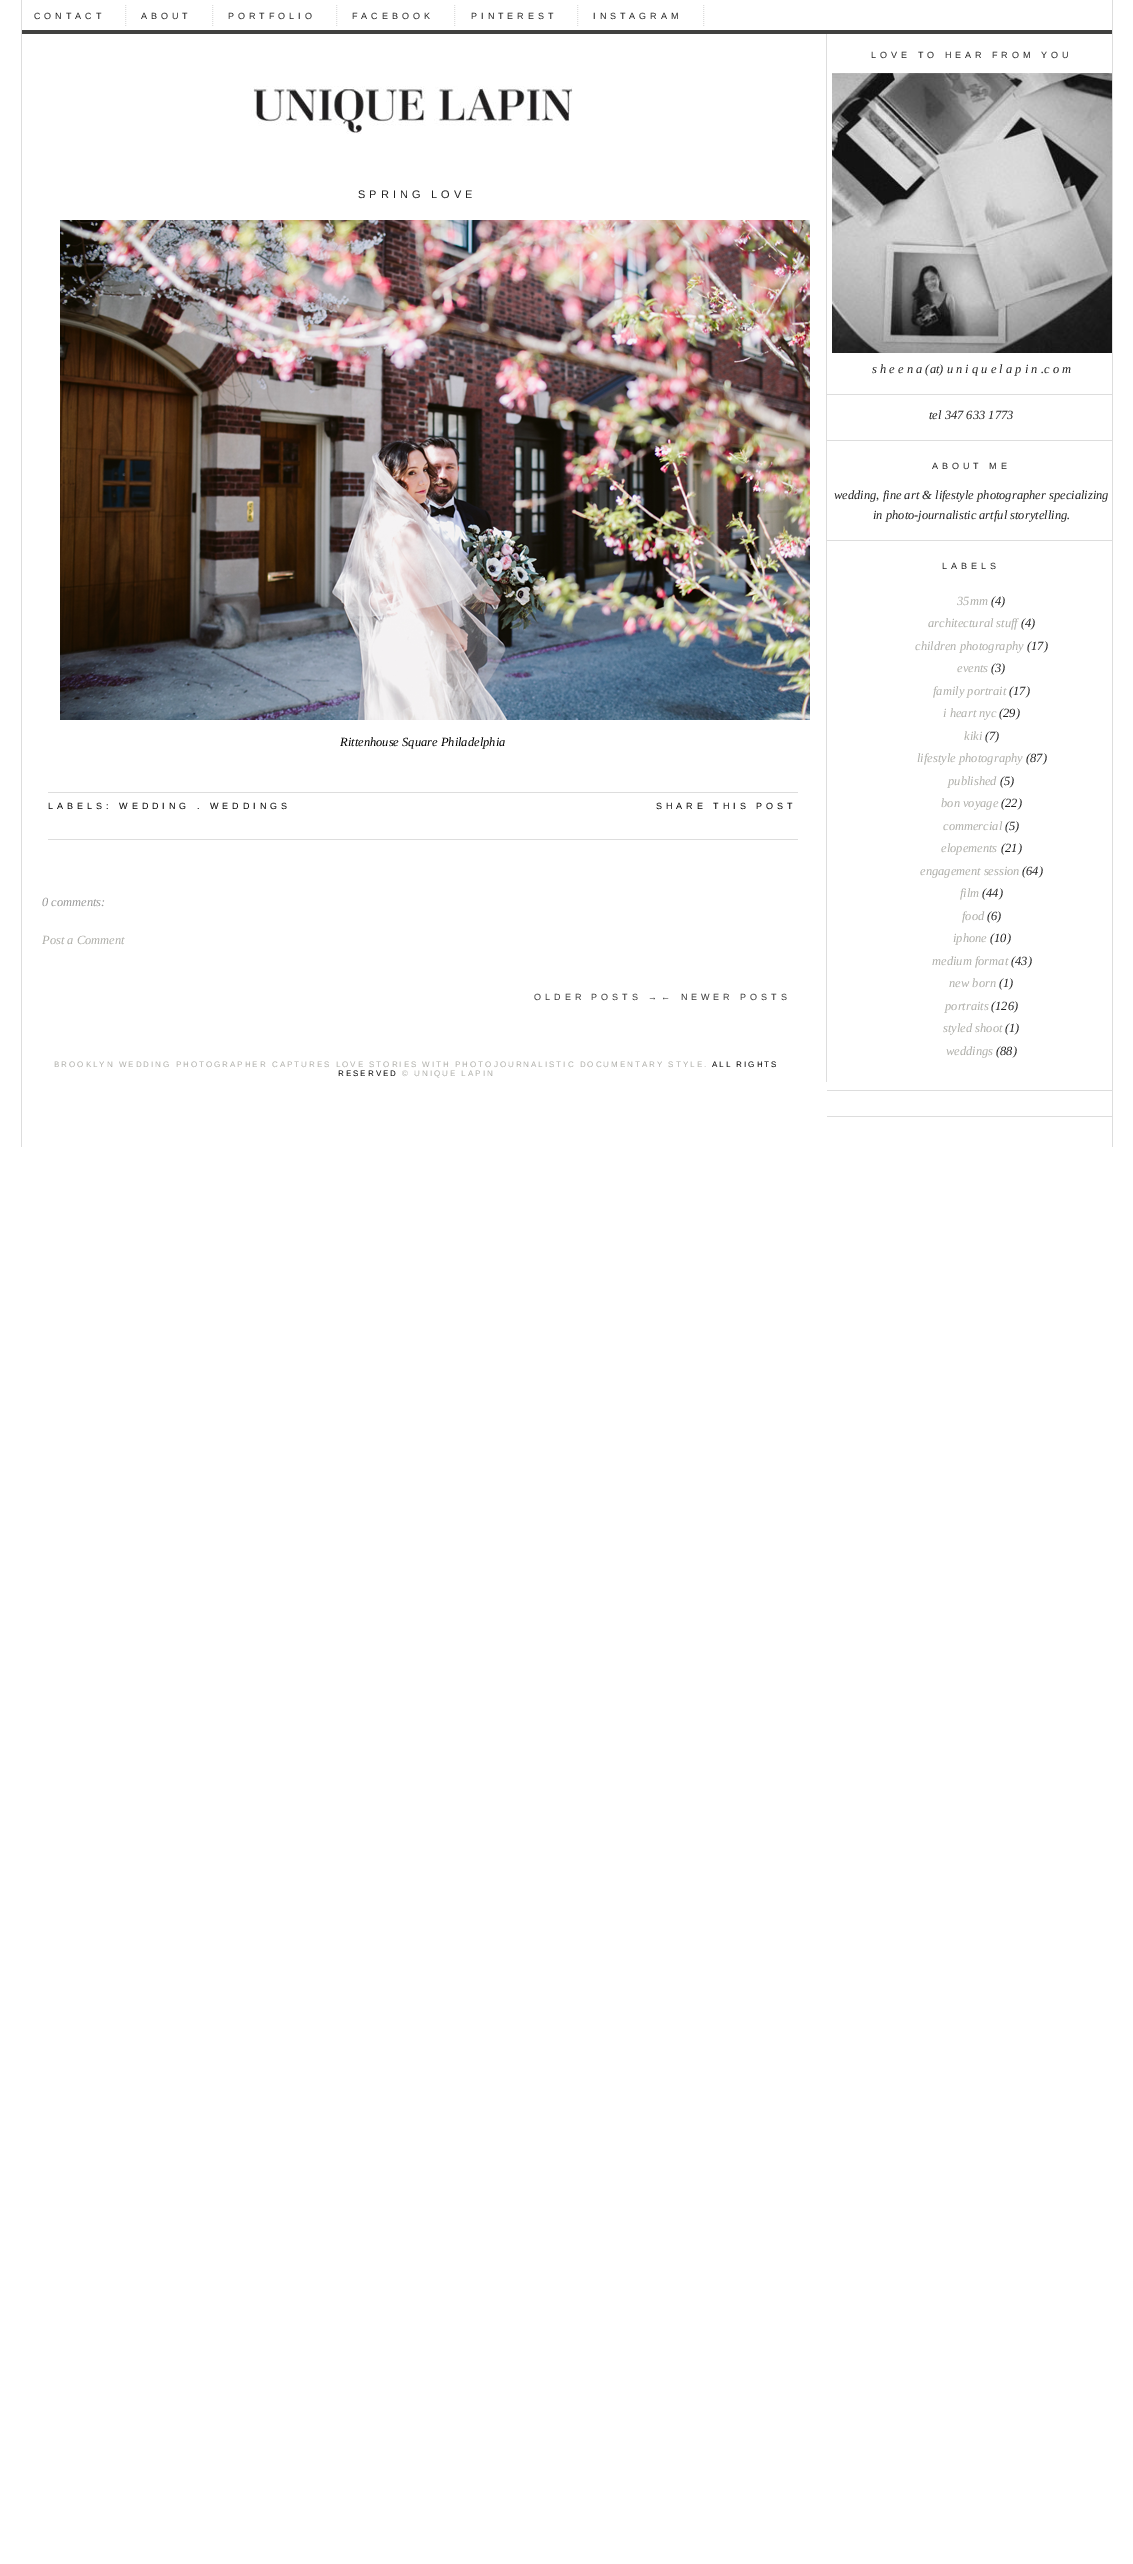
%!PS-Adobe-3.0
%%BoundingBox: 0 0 1133 2564
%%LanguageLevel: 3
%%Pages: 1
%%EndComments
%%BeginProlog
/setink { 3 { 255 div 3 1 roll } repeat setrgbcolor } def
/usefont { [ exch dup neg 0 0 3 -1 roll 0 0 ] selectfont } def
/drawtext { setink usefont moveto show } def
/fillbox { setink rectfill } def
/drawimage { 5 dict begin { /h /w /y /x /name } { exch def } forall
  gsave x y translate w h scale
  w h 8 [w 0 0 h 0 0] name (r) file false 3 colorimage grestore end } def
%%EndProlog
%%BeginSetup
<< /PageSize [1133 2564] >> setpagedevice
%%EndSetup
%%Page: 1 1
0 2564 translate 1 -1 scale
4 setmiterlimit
0 0 1133 2564 255 255 255 fillbox
1112 0 1 1147 221 221 221 fillbox
21 0 1 1147 221 221 221 fillbox
826 30 1 1052 221 221 221 fillbox
22 30 1090 4 65 65 63 fillbox
/LiberationSans-Regular 9 usefont
33 33 33 setink
34 19 moveto 4 0 (CONTACT) ashow
221 221 221 setink
[1 1] 0 setdash
125.5 5 moveto 125.5 27 lineto stroke
33 33 33 setink
141 19 moveto 4 0 (ABOUT) ashow
221 221 221 setink
212.5 5 moveto 212.5 27 lineto stroke
33 33 33 setink
228 19 moveto 4 0 (PORTFOLIO) ashow
221 221 221 setink
336.5 5 moveto 336.5 27 lineto stroke
33 33 33 setink
352 19 moveto 4 0 (FACEBOOK) ashow
221 221 221 setink
454.5 5 moveto 454.5 27 lineto stroke
33 33 33 setink
471 19 moveto 4 0 (PINTEREST) ashow
221 221 221 setink
577.5 5 moveto 577.5 27 lineto stroke
33 33 33 setink
593 19 moveto 4 0 (INSTAGRAM) ashow
221 221 221 setink
703.5 5 moveto 703.5 27 lineto stroke
(assets/img1.rgb) 250 86 323 48 drawimage
/LiberationSans-Regular 11 usefont
33 33 33 setink
358 198 moveto 4 0 (SPRING LOVE) ashow
(assets/img2.rgb) 60 220 750 500 drawimage
(Rittenhouse Square Philadelphia) 340 746 /LiberationSerif-Italic 12.5 0 0 0 drawtext
48 792 750 1 221 221 221 fillbox
48 839 750 1 221 221 221 fillbox
/LiberationSans-Regular 9 usefont
0 0 0 setink
48 809 moveto 4 0 (LABELS: WEDDING . WEDDINGS) ashow
656 809 moveto 4 0 (SHARE THIS POST) ashow
(0 comments:) 42 906 /LiberationSerif-Italic 12.5 153 153 153 drawtext
(Post a Comment) 42 944 /LiberationSerif-Italic 12.5 174 174 169 drawtext
/LiberationSans-Regular 9 usefont
51 51 51 setink
534 1000 moveto 4 0 (OLDER POSTS →) ashow
661 1000 moveto 4 0 (← NEWER POSTS) ashow
/LiberationSans-Regular 8 usefont
174 174 169 setink
54 1067 moveto 2 0 (BROOKLYN WEDDING PHOTOGRAPHER CAPTURES LOVE STORIES WITH PHOTOJOURNALISTIC DOCUMENTARY STYLE.) ashow
0 0 0 setink
712 1067 moveto 2 0 (ALL RIGHTS) ashow
338 1076 moveto 2 0 (RESERVED) ashow
174 174 169 setink
402 1076 moveto 2 0 (© UNIQUE LAPIN) ashow
827 394 285 1 221 221 221 fillbox
/LiberationSans-Regular 9 usefont
33 33 33 setink
871 58 moveto 4 0 (LOVE TO HEAR FROM YOU) ashow
(assets/img3.rgb) 832 73 280 280 drawimage
(s h e e n a \(at\) u n i q u e l a p i n .c o m) 872 373 /LiberationSerif-Italic 12.5 33 33 33 drawtext
827 440 285 1 221 221 221 fillbox
(tel 347 633 1773) 929 419 /LiberationSerif-Italic 12.5 33 33 33 drawtext
827 540 285 1 221 221 221 fillbox
/LiberationSans-Regular 9 usefont
33 33 33 setink
932 469 moveto 4 0 (ABOUT ME) ashow
(wedding, fine art & lifestyle photographer specializing) 834 499 /LiberationSerif-Italic 12.5 33 33 33 drawtext
(in photo-journalistic artful storytelling.) 873 519 /LiberationSerif-Italic 12.5 33 33 33 drawtext
827 1090 285 1 221 221 221 fillbox
/LiberationSans-Regular 9 usefont
33 33 33 setink
942 569 moveto 4 0 (LABELS) ashow
(35mm) 957 605 /LiberationSerif-Italic 12.5 174 174 169 drawtext
(\(4\)) 991 605 /LiberationSerif-Italic 12.5 33 33 33 drawtext
(architectural stuff) 928 627 /LiberationSerif-Italic 12.5 174 174 169 drawtext
(\(4\)) 1021 627 /LiberationSerif-Italic 12.5 33 33 33 drawtext
(children photography) 915 650 /LiberationSerif-Italic 12.5 174 174 169 drawtext
(\(17\)) 1027 650 /LiberationSerif-Italic 12.5 33 33 33 drawtext
(events) 957 672 /LiberationSerif-Italic 12.5 174 174 169 drawtext
(\(3\)) 991 672 /LiberationSerif-Italic 12.5 33 33 33 drawtext
(family portrait) 933 695 /LiberationSerif-Italic 12.5 174 174 169 drawtext
(\(17\)) 1009 695 /LiberationSerif-Italic 12.5 33 33 33 drawtext
(i heart nyc) 943 717 /LiberationSerif-Italic 12.5 174 174 169 drawtext
(\(29\)) 999 717 /LiberationSerif-Italic 12.5 33 33 33 drawtext
(kiki) 964 740 /LiberationSerif-Italic 12.5 174 174 169 drawtext
(\(7\)) 985 740 /LiberationSerif-Italic 12.5 33 33 33 drawtext
(lifestyle photography) 917 762 /LiberationSerif-Italic 12.5 174 174 169 drawtext
(\(87\)) 1026 762 /LiberationSerif-Italic 12.5 33 33 33 drawtext
(published) 948 785 /LiberationSerif-Italic 12.5 174 174 169 drawtext
(\(5\)) 1000 785 /LiberationSerif-Italic 12.5 33 33 33 drawtext
(bon voyage) 941 807 /LiberationSerif-Italic 12.5 174 174 169 drawtext
(\(22\)) 1001 807 /LiberationSerif-Italic 12.5 33 33 33 drawtext
(commercial) 943 830 /LiberationSerif-Italic 12.5 174 174 169 drawtext
(\(5\)) 1005 830 /LiberationSerif-Italic 12.5 33 33 33 drawtext
(elopements) 941 852 /LiberationSerif-Italic 12.5 174 174 169 drawtext
(\(21\)) 1001 852 /LiberationSerif-Italic 12.5 33 33 33 drawtext
(engagement session) 920 875 /LiberationSerif-Italic 12.5 174 174 169 drawtext
(\(64\)) 1022 875 /LiberationSerif-Italic 12.5 33 33 33 drawtext
(film) 960 897 /LiberationSerif-Italic 12.5 174 174 169 drawtext
(\(44\)) 982 897 /LiberationSerif-Italic 12.5 33 33 33 drawtext
(food) 962 920 /LiberationSerif-Italic 12.5 174 174 169 drawtext
(\(6\)) 987 920 /LiberationSerif-Italic 12.5 33 33 33 drawtext
(iphone) 953 942 /LiberationSerif-Italic 12.5 174 174 169 drawtext
(\(10\)) 990 942 /LiberationSerif-Italic 12.5 33 33 33 drawtext
(medium format) 932 965 /LiberationSerif-Italic 12.5 174 174 169 drawtext
(\(43\)) 1011 965 /LiberationSerif-Italic 12.5 33 33 33 drawtext
(new born) 949 987 /LiberationSerif-Italic 12.5 174 174 169 drawtext
(\(1\)) 999 987 /LiberationSerif-Italic 12.5 33 33 33 drawtext
(portraits) 945 1010 /LiberationSerif-Italic 12.5 174 174 169 drawtext
(\(126\)) 991 1010 /LiberationSerif-Italic 12.5 33 33 33 drawtext
(styled shoot) 943 1032 /LiberationSerif-Italic 12.5 174 174 169 drawtext
(\(1\)) 1005 1032 /LiberationSerif-Italic 12.5 33 33 33 drawtext
(weddings) 946 1055 /LiberationSerif-Italic 12.5 174 174 169 drawtext
(\(88\)) 996 1055 /LiberationSerif-Italic 12.5 33 33 33 drawtext
827 1116 285 1 221 221 221 fillbox
showpage
%%EOF
